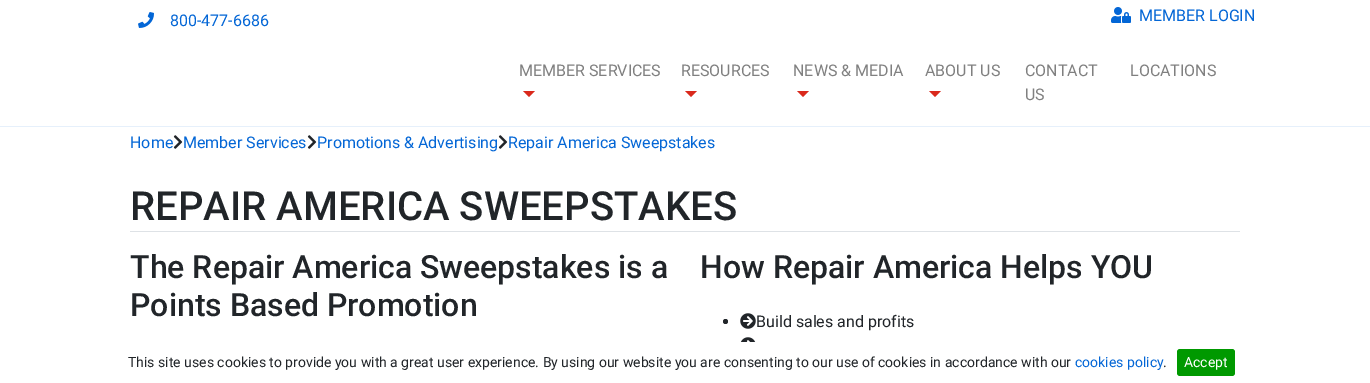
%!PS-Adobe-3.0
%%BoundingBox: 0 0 1370 383
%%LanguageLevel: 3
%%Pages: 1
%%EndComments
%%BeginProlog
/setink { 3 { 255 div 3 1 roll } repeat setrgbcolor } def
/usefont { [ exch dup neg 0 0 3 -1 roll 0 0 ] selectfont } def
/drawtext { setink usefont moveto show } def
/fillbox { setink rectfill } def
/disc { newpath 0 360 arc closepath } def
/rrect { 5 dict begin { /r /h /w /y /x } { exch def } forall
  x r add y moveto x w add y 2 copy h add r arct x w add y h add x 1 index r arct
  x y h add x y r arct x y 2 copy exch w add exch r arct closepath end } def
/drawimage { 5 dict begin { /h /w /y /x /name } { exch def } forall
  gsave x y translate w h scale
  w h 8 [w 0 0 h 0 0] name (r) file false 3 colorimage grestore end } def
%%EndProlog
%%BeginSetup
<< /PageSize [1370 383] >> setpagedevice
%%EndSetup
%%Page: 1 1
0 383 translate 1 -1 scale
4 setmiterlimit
0 0 1370 383 255 255 255 fillbox
0 126 1370 1 230 240 251 fillbox
(assets/img1.rgb) 138 12 16 16 drawimage
(800-477-6686) 170 26 /Roboto-Regular 16 3 102 214 drawtext
(assets/img2.rgb) 1111 7 20 16 drawimage
(MEMBER LOGIN) 1139 21 /Roboto-Regular 16 3 102 214 drawtext
(MEMBER SERVICES) 519 76 /Roboto-Regular 16 128 128 128 drawtext
218 41 28 setink
523 91 moveto 535 91 lineto 529 97 lineto closepath fill
(RESOURCES) 681 76 /Roboto-Regular 16 128 128 128 drawtext
218 41 28 setink
685 91 moveto 697 91 lineto 691 97 lineto closepath fill
(NEWS & MEDIA) 793 76 /Roboto-Regular 16 128 128 128 drawtext
218 41 28 setink
797 91 moveto 809 91 lineto 803 97 lineto closepath fill
(ABOUT US) 925 76 /Roboto-Regular 16 128 128 128 drawtext
218 41 28 setink
929 91 moveto 941 91 lineto 935 97 lineto closepath fill
(CONTACT) 1025 76 /Roboto-Regular 16 128 128 128 drawtext
(US) 1025 100 /Roboto-Regular 16 128 128 128 drawtext
(LOCATIONS) 1130 76 /Roboto-Regular 16 128 128 128 drawtext
(Home) 130 148 /Roboto-Regular 16 3 102 214 drawtext
(assets/img3.rgb) 173 135 10 14 drawimage
(Member Services) 183 148 /Roboto-Regular 16 3 102 214 drawtext
(assets/img3.rgb) 307 135 10 14 drawimage
(Promotions & Advertising) 317 148 /Roboto-Regular 16 3 102 214 drawtext
(assets/img3.rgb) 498 135 10 14 drawimage
(Repair America Sweepstakes) 508 148 /Roboto-Regular 16 3 102 214 drawtext
130 231 1110 1 222 226 230 fillbox
(REPAIR AMERICA SWEEPSTAKES) 130 220 /Roboto-Medium 40 33 37 41 drawtext
(The Repair America Sweepstakes is a) 130 278 /Roboto-Medium 32 33 37 41 drawtext
(Points Based Promotion) 130 316 /Roboto-Medium 32 33 37 41 drawtext
(How Repair America Helps YOU) 700 278 /Roboto-Medium 32 33 37 41 drawtext
725.5 321.5 2.5 disc fill
(assets/img4.rgb) 740 313 16 16 drawimage
(Build sales and profits) 756 327 /Roboto-Regular 16 33 37 41 drawtext
(assets/img5.rgb) 740 337 16 5 drawimage
(This site uses cookies to provide you with a great user experience. By using our website you are consenting to our use of cookies in accordance with our) 128 367 /Roboto-Regular 14 33 37 41 drawtext
(cookies policy) 1075 367 /Roboto-Regular 14 3 102 214 drawtext
(.) 1163 367 /Roboto-Regular 14 33 37 41 drawtext
0 153 0 setink
1177 349 58 27 3 rrect fill
(Accept) 1184 367 /Roboto-Regular 14 255 255 255 drawtext
showpage
%%EOF
